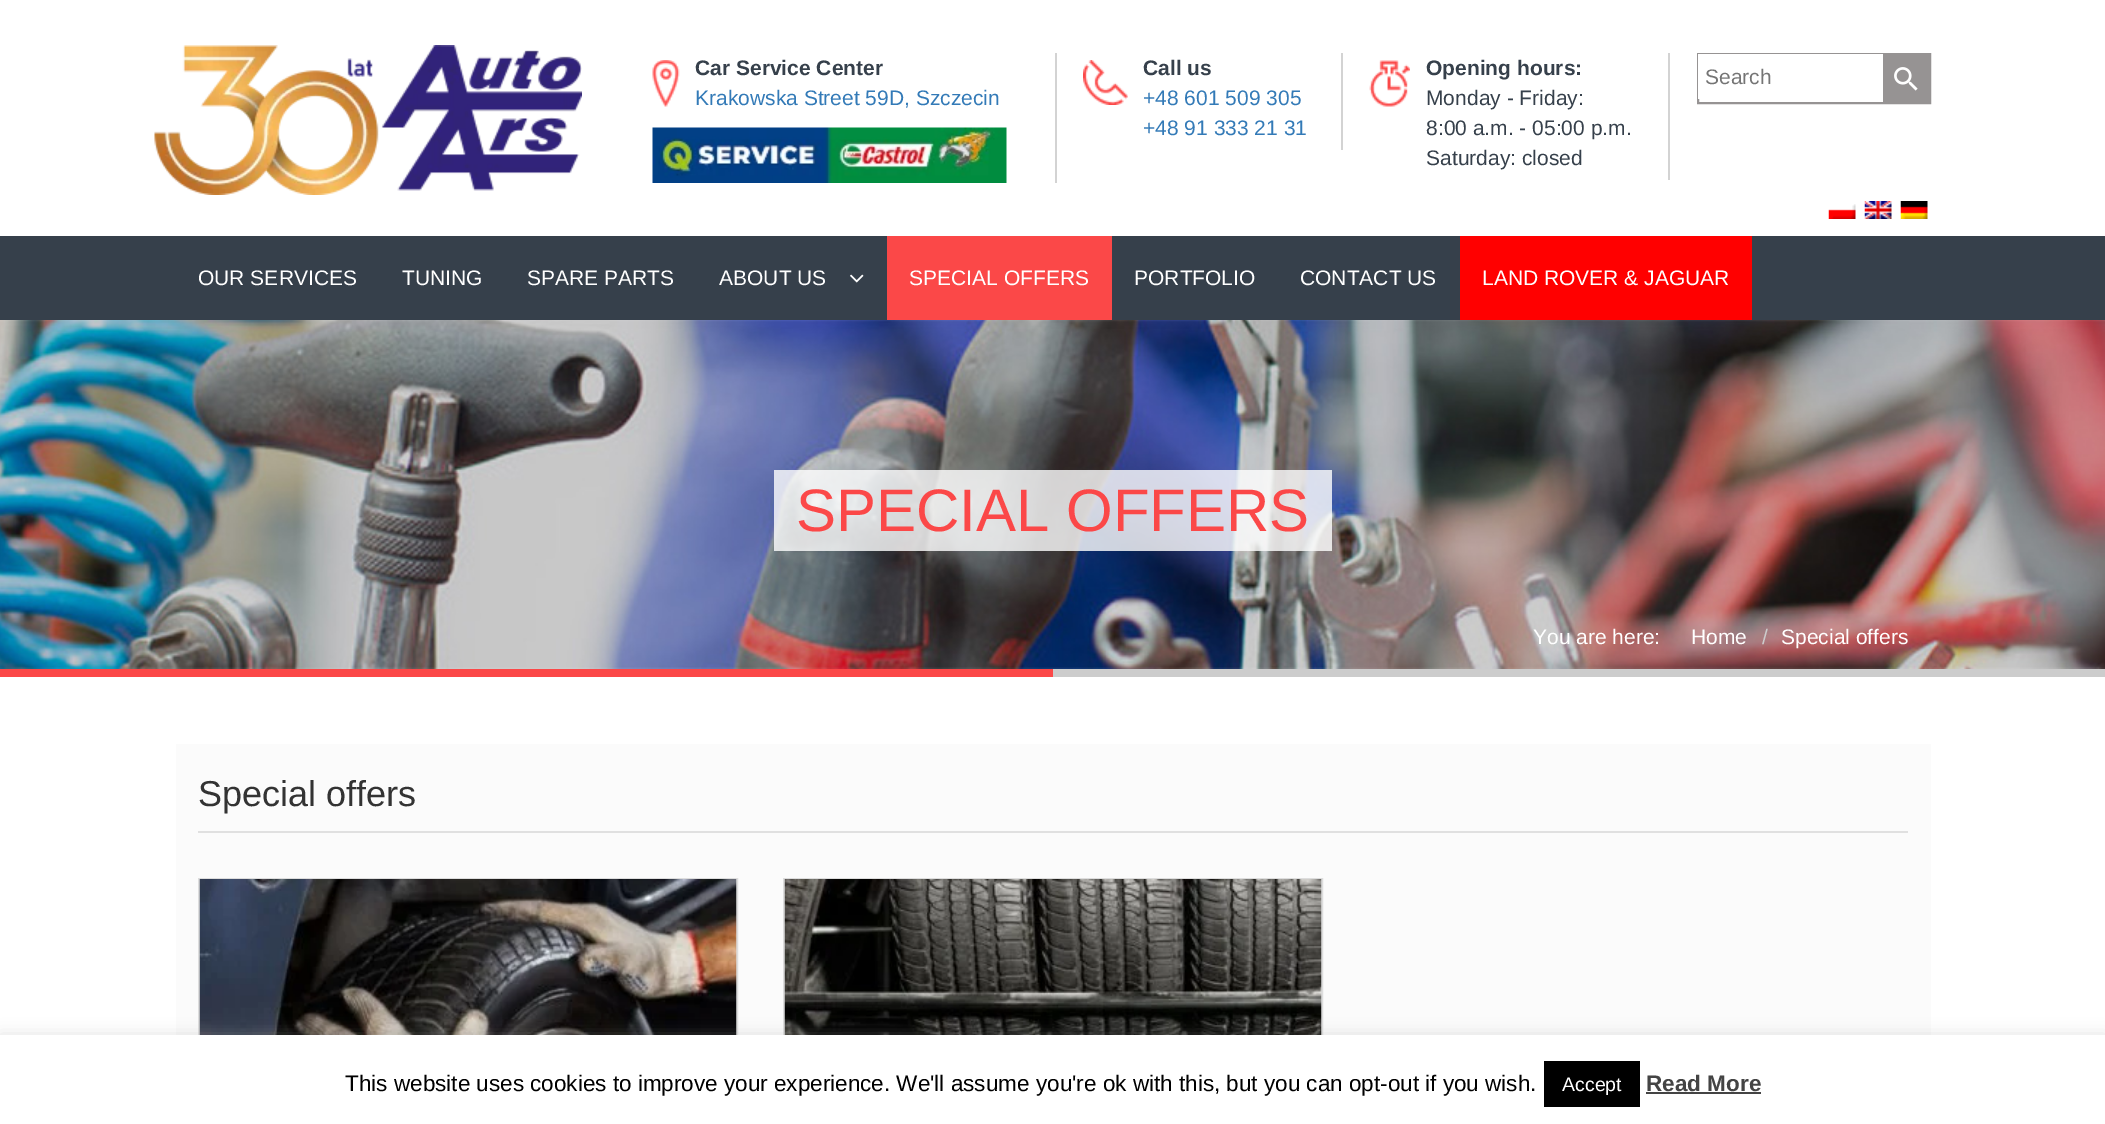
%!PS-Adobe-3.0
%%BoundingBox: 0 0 2105 1124
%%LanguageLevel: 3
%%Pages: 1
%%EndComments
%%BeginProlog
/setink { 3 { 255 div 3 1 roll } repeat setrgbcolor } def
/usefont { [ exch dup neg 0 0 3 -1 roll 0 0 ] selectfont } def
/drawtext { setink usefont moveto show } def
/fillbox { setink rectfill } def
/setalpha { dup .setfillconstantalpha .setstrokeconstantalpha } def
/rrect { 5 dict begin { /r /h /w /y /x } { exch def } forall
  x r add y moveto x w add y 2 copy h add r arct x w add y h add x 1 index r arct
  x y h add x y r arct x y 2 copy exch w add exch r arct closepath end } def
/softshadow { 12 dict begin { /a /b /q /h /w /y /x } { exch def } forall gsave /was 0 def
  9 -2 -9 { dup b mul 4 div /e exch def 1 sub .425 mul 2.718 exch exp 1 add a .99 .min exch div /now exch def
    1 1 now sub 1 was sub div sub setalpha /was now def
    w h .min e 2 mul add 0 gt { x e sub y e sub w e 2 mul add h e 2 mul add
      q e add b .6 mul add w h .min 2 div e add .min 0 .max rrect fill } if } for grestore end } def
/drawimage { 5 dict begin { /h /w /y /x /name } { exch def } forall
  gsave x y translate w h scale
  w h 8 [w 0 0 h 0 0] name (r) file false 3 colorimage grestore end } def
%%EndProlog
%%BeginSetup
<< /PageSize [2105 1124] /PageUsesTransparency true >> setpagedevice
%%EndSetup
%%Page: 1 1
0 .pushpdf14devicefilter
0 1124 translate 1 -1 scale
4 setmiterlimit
0 0 2105 1124 255 255 255 fillbox
(assets/img1.rgb) 154 45 428 150 drawimage
1055 53 2 130 211 211 211 fillbox
(assets/img2.rgb) 652 60 28 47 drawimage
(Car Service Center) 695 75 /LiberationSans-Bold 21 54 64 75 drawtext
(Krakowska Street 59D, Szczecin) 695 105 /LiberationSans-Regular 21 51 122 183 drawtext
(assets/img3.rgb) 652 127 355 56 drawimage
1341 53 2 97 211 211 211 fillbox
(assets/img4.rgb) 1083 60 45 45 drawimage
(Call us) 1143 75 /LiberationSans-Bold 21 54 64 75 drawtext
(+48 601 509 305) 1143 105 /LiberationSans-Regular 21 51 122 183 drawtext
(+48 91 333 21 31) 1143 135 /LiberationSans-Regular 21 51 122 183 drawtext
1668 53 2 127 211 211 211 fillbox
(assets/img5.rgb) 1369 60 41 47 drawimage
(Opening hours:) 1426 75 /LiberationSans-Bold 21 54 64 75 drawtext
(Monday - Friday:) 1426 105 /LiberationSans-Regular 21 54 64 75 drawtext
(8:00 a.m. - 05:00 p.m.) 1426 135 /LiberationSans-Regular 21 54 64 75 drawtext
(Saturday: closed) 1426 165 /LiberationSans-Regular 21 54 64 75 drawtext
150 147 147 setink
2 setlinewidth
1698 54 232 49 rectstroke
1698 54 185 45 255 255 255 fillbox
(Search) 1705 84 /LiberationSans-Regular 21 117 117 117 drawtext
1883 55 46 47 150 147 147 fillbox
(assets/img6.rgb) 1894 67 24 24 drawimage
(assets/img7.rgb) 1828 204 28 15 drawimage
(assets/img8.rgb) 1864 201 28 18 drawimage
(assets/img9.rgb) 1900 201 28 18 drawimage
0 236 2105 84 54 64 75 fillbox
(OUR SERVICES) 198 285 /LiberationSans-Regular 21 255 255 255 drawtext
(TUNING) 402 285 /LiberationSans-Regular 21 255 255 255 drawtext
(SPARE PARTS) 527 285 /LiberationSans-Regular 21 255 255 255 drawtext
(ABOUT US) 719 285 /LiberationSans-Regular 21 255 255 255 drawtext
(assets/img10.rgb) 850 274 14 9 drawimage
887 236 225 84 251 72 72 fillbox
(SPECIAL OFFERS) 909 285 /LiberationSans-Regular 21 255 255 255 drawtext
(PORTFOLIO) 1134 285 /LiberationSans-Regular 21 255 255 255 drawtext
(CONTACT US) 1300 285 /LiberationSans-Regular 21 255 255 255 drawtext
1460 236 292 84 255 0 0 fillbox
(LAND ROVER & JAGUAR) 1482 285 /LiberationSans-Regular 21 255 255 255 drawtext
(assets/img11.rgb) 0 320 2105 349 drawimage
0.8 setalpha
774 470 558 81 255 255 255 fillbox
1 setalpha
(SPECIAL OFFERS) 796 531 /LiberationSans-Regular 60 251 72 72 drawtext
(You are here:) 1533 644 /LiberationSans-Regular 21 255 255 255 drawtext
(Home) 1691 644 /LiberationSans-Regular 21 255 255 255 drawtext
(/) 1762 644 /LiberationSans-Regular 21 204 204 204 drawtext
(Special offers) 1781 644 /LiberationSans-Regular 21 255 255 255 drawtext
0 669 1053 8 251 72 72 fillbox
1053 669 1052 8 204 204 204 fillbox
176 744 1755 291 251 251 251 fillbox
198 831 1710 2 224 224 224 fillbox
(Special offers) 198 806 /LiberationSans-Regular 36 51 51 51 drawtext
221 221 221 setink
199 879 538 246 rectstroke
(assets/img12.rgb) 199 879 538 156 drawimage
784 879 538 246 rectstroke
(assets/img13.rgb) 784 879 538 156 drawimage
172 171 171 setink
0 1034 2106 90 0 7.5 0.3 softshadow
0 1035 2105 89 255 255 255 fillbox
(This website uses cookies to improve your experience. We'll assume you're ok with this, but you can opt-out if you wish.) 345 1091 /LiberationSans-Regular 22.5 0 0 0 drawtext
1544 1061 96 46 0 0 0 fillbox
(Accept) 1562 1091 /LiberationSans-Regular 19.5 255 255 255 drawtext
(Read More) 1646 1091 /LiberationSans-Bold 22.5 68 68 68 drawtext
1646 1092 115 2 68 68 68 fillbox
.poppdf14devicefilter showpage
%%EOF
